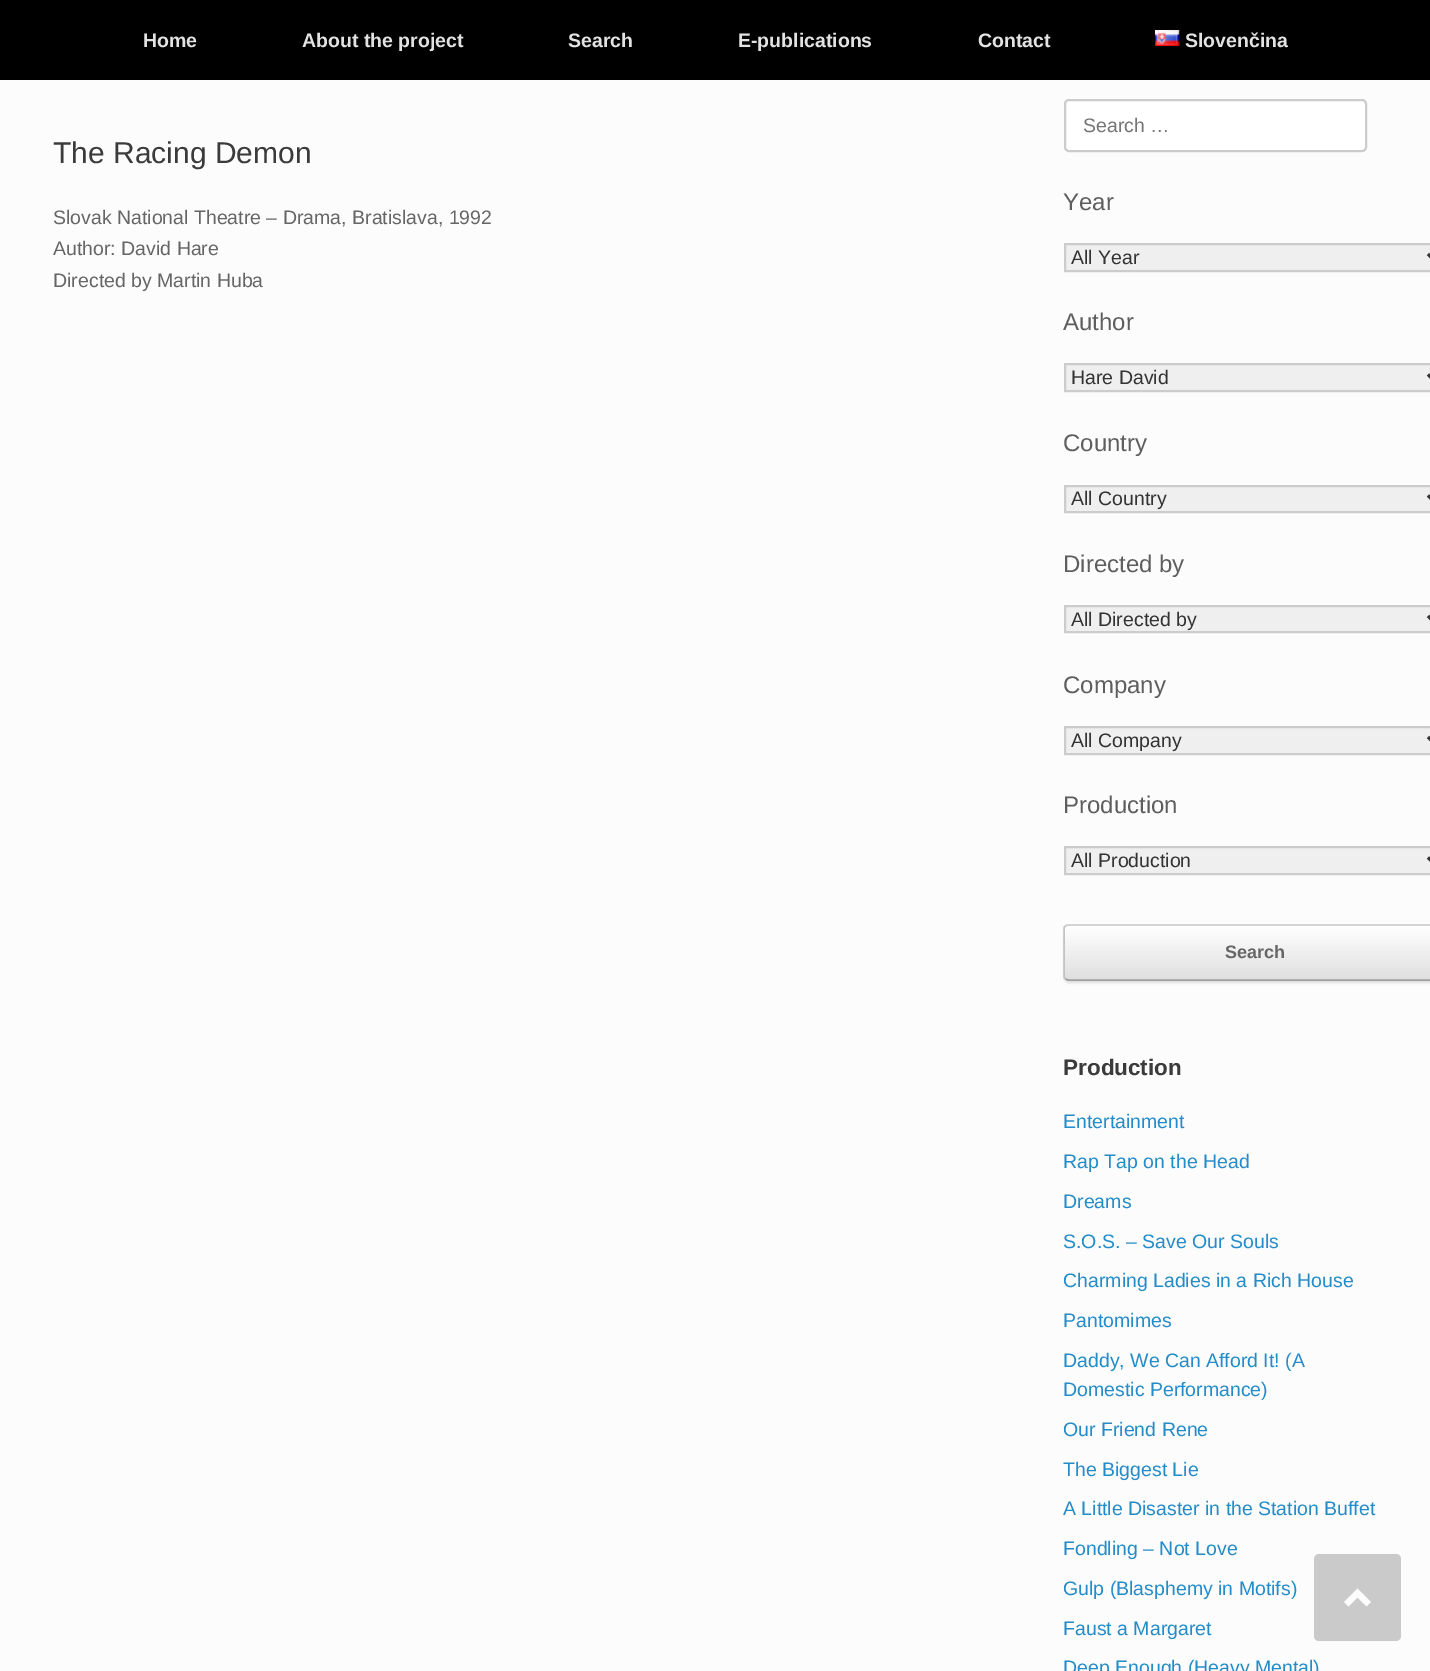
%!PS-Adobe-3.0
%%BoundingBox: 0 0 1430 1671
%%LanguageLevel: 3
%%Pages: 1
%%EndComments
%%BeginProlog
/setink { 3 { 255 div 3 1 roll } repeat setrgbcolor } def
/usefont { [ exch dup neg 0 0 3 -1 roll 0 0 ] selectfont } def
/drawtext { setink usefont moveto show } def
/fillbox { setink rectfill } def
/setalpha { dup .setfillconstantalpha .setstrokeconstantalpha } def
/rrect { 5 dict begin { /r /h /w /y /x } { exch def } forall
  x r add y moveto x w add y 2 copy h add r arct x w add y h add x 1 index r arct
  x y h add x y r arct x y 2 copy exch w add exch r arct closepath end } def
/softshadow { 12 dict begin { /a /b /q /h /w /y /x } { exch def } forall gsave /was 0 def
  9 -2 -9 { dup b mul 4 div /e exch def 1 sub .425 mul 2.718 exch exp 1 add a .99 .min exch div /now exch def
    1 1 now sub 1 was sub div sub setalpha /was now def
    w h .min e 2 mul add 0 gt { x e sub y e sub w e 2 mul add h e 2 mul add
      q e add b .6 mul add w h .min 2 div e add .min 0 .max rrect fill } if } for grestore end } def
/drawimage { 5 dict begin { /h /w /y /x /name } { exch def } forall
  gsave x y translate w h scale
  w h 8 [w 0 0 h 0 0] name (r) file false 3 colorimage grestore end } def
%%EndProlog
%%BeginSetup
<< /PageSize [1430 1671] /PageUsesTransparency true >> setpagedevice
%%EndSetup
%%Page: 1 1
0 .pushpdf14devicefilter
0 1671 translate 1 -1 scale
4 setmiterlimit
0 0 1430 1671 252 252 252 fillbox
0 0 1430 80 0 0 0 fillbox
(Home) 143 47 /LiberationSans-Bold 19.5 226 226 226 drawtext
(About the project) 302 47 /LiberationSans-Bold 19.5 226 226 226 drawtext
(Search) 568 47 /LiberationSans-Bold 19.5 226 226 226 drawtext
(E-publications) 738 47 /LiberationSans-Bold 19.5 226 226 226 drawtext
(Contact) 978 47 /LiberationSans-Bold 19.5 226 226 226 drawtext
(assets/img1.rgb) 1155 30 25 16 drawimage
(Slovenčina) 1185 47 /LiberationSans-Bold 19.5 226 226 226 drawtext
(The Racing Demon) 53 163 /LiberationSans-Regular 30 59 59 59 drawtext
(Slovak National Theatre – Drama, Bratislava, 1992) 53 224 /LiberationSans-Regular 19.5 102 102 102 drawtext
(Author: David Hare) 53 255 /LiberationSans-Regular 19.5 102 102 102 drawtext
(Directed by Martin Huba) 53 287 /LiberationSans-Regular 19.5 102 102 102 drawtext
255 255 255 setink
1065 100 301 51 4 rrect gsave fill grestore
204 204 204 setink
2 setlinewidth
stroke
(Search …) 1083 132 /LiberationSans-Regular 19.5 117 117 117 drawtext
(Year) 1063 210 /LiberationSans-Regular 24 94 94 94 drawtext
239 239 239 setink
1065 244 moveto 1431 244 lineto 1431 271 lineto 1065 271 lineto closepath gsave fill grestore
204 204 204 setink
stroke
51 51 51 setink
3 setlinewidth
1428 254 moveto 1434 260 lineto 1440 254 lineto stroke
(All Year) 1071 264 /LiberationSans-Regular 19.5 51 51 51 drawtext
(Author) 1063 330 /LiberationSans-Regular 24 94 94 94 drawtext
239 239 239 setink
1065 364 moveto 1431 364 lineto 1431 391 lineto 1065 391 lineto closepath gsave fill grestore
204 204 204 setink
2 setlinewidth
stroke
51 51 51 setink
3 setlinewidth
1428 374.5 moveto 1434 380.5 lineto 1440 374.5 lineto stroke
(Hare David) 1071 384 /LiberationSans-Regular 19.5 51 51 51 drawtext
(Country) 1063 451 /LiberationSans-Regular 24 94 94 94 drawtext
239 239 239 setink
1065 486 moveto 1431 486 lineto 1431 512 lineto 1065 512 lineto closepath gsave fill grestore
204 204 204 setink
2 setlinewidth
stroke
51 51 51 setink
3 setlinewidth
1428 495.5 moveto 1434 501.5 lineto 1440 495.5 lineto stroke
(All Country) 1071 505 /LiberationSans-Regular 19.5 51 51 51 drawtext
(Directed by) 1063 572 /LiberationSans-Regular 24 94 94 94 drawtext
239 239 239 setink
1065 606 moveto 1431 606 lineto 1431 632 lineto 1065 632 lineto closepath gsave fill grestore
204 204 204 setink
2 setlinewidth
stroke
51 51 51 setink
3 setlinewidth
1428 616 moveto 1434 622 lineto 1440 616 lineto stroke
(All Directed by) 1071 626 /LiberationSans-Regular 19.5 51 51 51 drawtext
(Company) 1063 693 /LiberationSans-Regular 24 94 94 94 drawtext
239 239 239 setink
1065 727 moveto 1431 727 lineto 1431 754 lineto 1065 754 lineto closepath gsave fill grestore
204 204 204 setink
2 setlinewidth
stroke
51 51 51 setink
3 setlinewidth
1428 737 moveto 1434 743 lineto 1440 737 lineto stroke
(All Company) 1071 747 /LiberationSans-Regular 19.5 51 51 51 drawtext
(Production) 1063 813 /LiberationSans-Regular 24 94 94 94 drawtext
239 239 239 setink
1065 847 moveto 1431 847 lineto 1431 874 lineto 1065 874 lineto closepath gsave fill grestore
204 204 204 setink
2 setlinewidth
stroke
51 51 51 setink
3 setlinewidth
1428 857.5 moveto 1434 863.5 lineto 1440 857.5 lineto stroke
(All Production) 1071 867 /LiberationSans-Regular 19.5 51 51 51 drawtext
0 0 0 setink
1064 926 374 57 5 1 0.12 softshadow
gsave
1064 924 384 57 5 rrect clip newpath
gsave 1064 924 moveto 1430 924 lineto 1430 926 lineto 1064 926 lineto closepath clip newpath
<< /ShadingType 2 /ColorSpace /DeviceRGB /Coords [1065 926 1065 872] /Extend [true true] /Function << /FunctionType 2 /Domain [0 1] /C0 [0.875 0.875 0.875] /C1 [1 1 1] /N 1 >> >> shfill grestore
gsave 1064 926 moveto 1430 926 lineto 1430 980 lineto 1064 980 lineto closepath clip newpath
<< /ShadingType 2 /ColorSpace /DeviceRGB /Coords [1065 980 1065 926] /Extend [true true] /Function << /FunctionType 2 /Domain [0 1] /C0 [0.875 0.875 0.875] /C1 [1 1 1] /N 1 >> >> shfill grestore
grestore
210 210 210 setink
1.5 setlinewidth
1065.5 926 moveto 1068 925 lineto 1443 925 lineto 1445.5 926 lineto stroke
159 159 159 setink
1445.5 979 moveto 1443 980 lineto 1068 980 lineto 1065.5 979 lineto stroke
195 195 195 setink
1065.5 979 moveto 1064.5 978.5 1064 977.5 1064 976.5 curveto 1064 928.5 lineto 1064 927.5 1064.5 926.5 1065.5 926 curveto stroke
(Search) 1225 958 /LiberationSans-Bold 18 102 102 102 drawtext
(Production) 1063 1075 /LiberationSans-Bold 22.5 59 59 59 drawtext
(Entertainment) 1063 1128 /LiberationSans-Regular 19.5 36 140 200 drawtext
(Rap Tap on the Head) 1063 1168 /LiberationSans-Regular 19.5 36 140 200 drawtext
(Dreams) 1063 1208 /LiberationSans-Regular 19.5 36 140 200 drawtext
(S.O.S. – Save Our Souls) 1063 1248 /LiberationSans-Regular 19.5 36 140 200 drawtext
(Charming Ladies in a Rich House) 1063 1287 /LiberationSans-Regular 19.5 36 140 200 drawtext
(Pantomimes) 1063 1327 /LiberationSans-Regular 19.5 36 140 200 drawtext
(Daddy, We Can Afford It! \(A) 1063 1367 /LiberationSans-Regular 19.5 36 140 200 drawtext
(Domestic Performance\)) 1063 1396 /LiberationSans-Regular 19.5 36 140 200 drawtext
(Our Friend Rene) 1063 1436 /LiberationSans-Regular 19.5 36 140 200 drawtext
(The Biggest Lie) 1063 1476 /LiberationSans-Regular 19.5 36 140 200 drawtext
(A Little Disaster in the Station Buffet) 1063 1515 /LiberationSans-Regular 19.5 36 140 200 drawtext
(Fondling – Not Love) 1063 1555 /LiberationSans-Regular 19.5 36 140 200 drawtext
(Gulp \(Blasphemy in Motifs\)) 1063 1595 /LiberationSans-Regular 19.5 36 140 200 drawtext
(Faust a Margaret) 1063 1635 /LiberationSans-Regular 19.5 36 140 200 drawtext
(Deep Enough \(Heavy Mental\)) 1063 1674 /LiberationSans-Regular 19.5 36 140 200 drawtext
202 202 202 setink
1314 1554 87 87 5 rrect fill
253 253 253 setink
1371 1602 moveto 1357.5 1588.5 lineto 1344 1602 lineto 1348.5 1606.5 lineto 1357.5 1597.5 lineto 1366.5 1606.5 lineto closepath fill
.poppdf14devicefilter showpage
%%EOF
